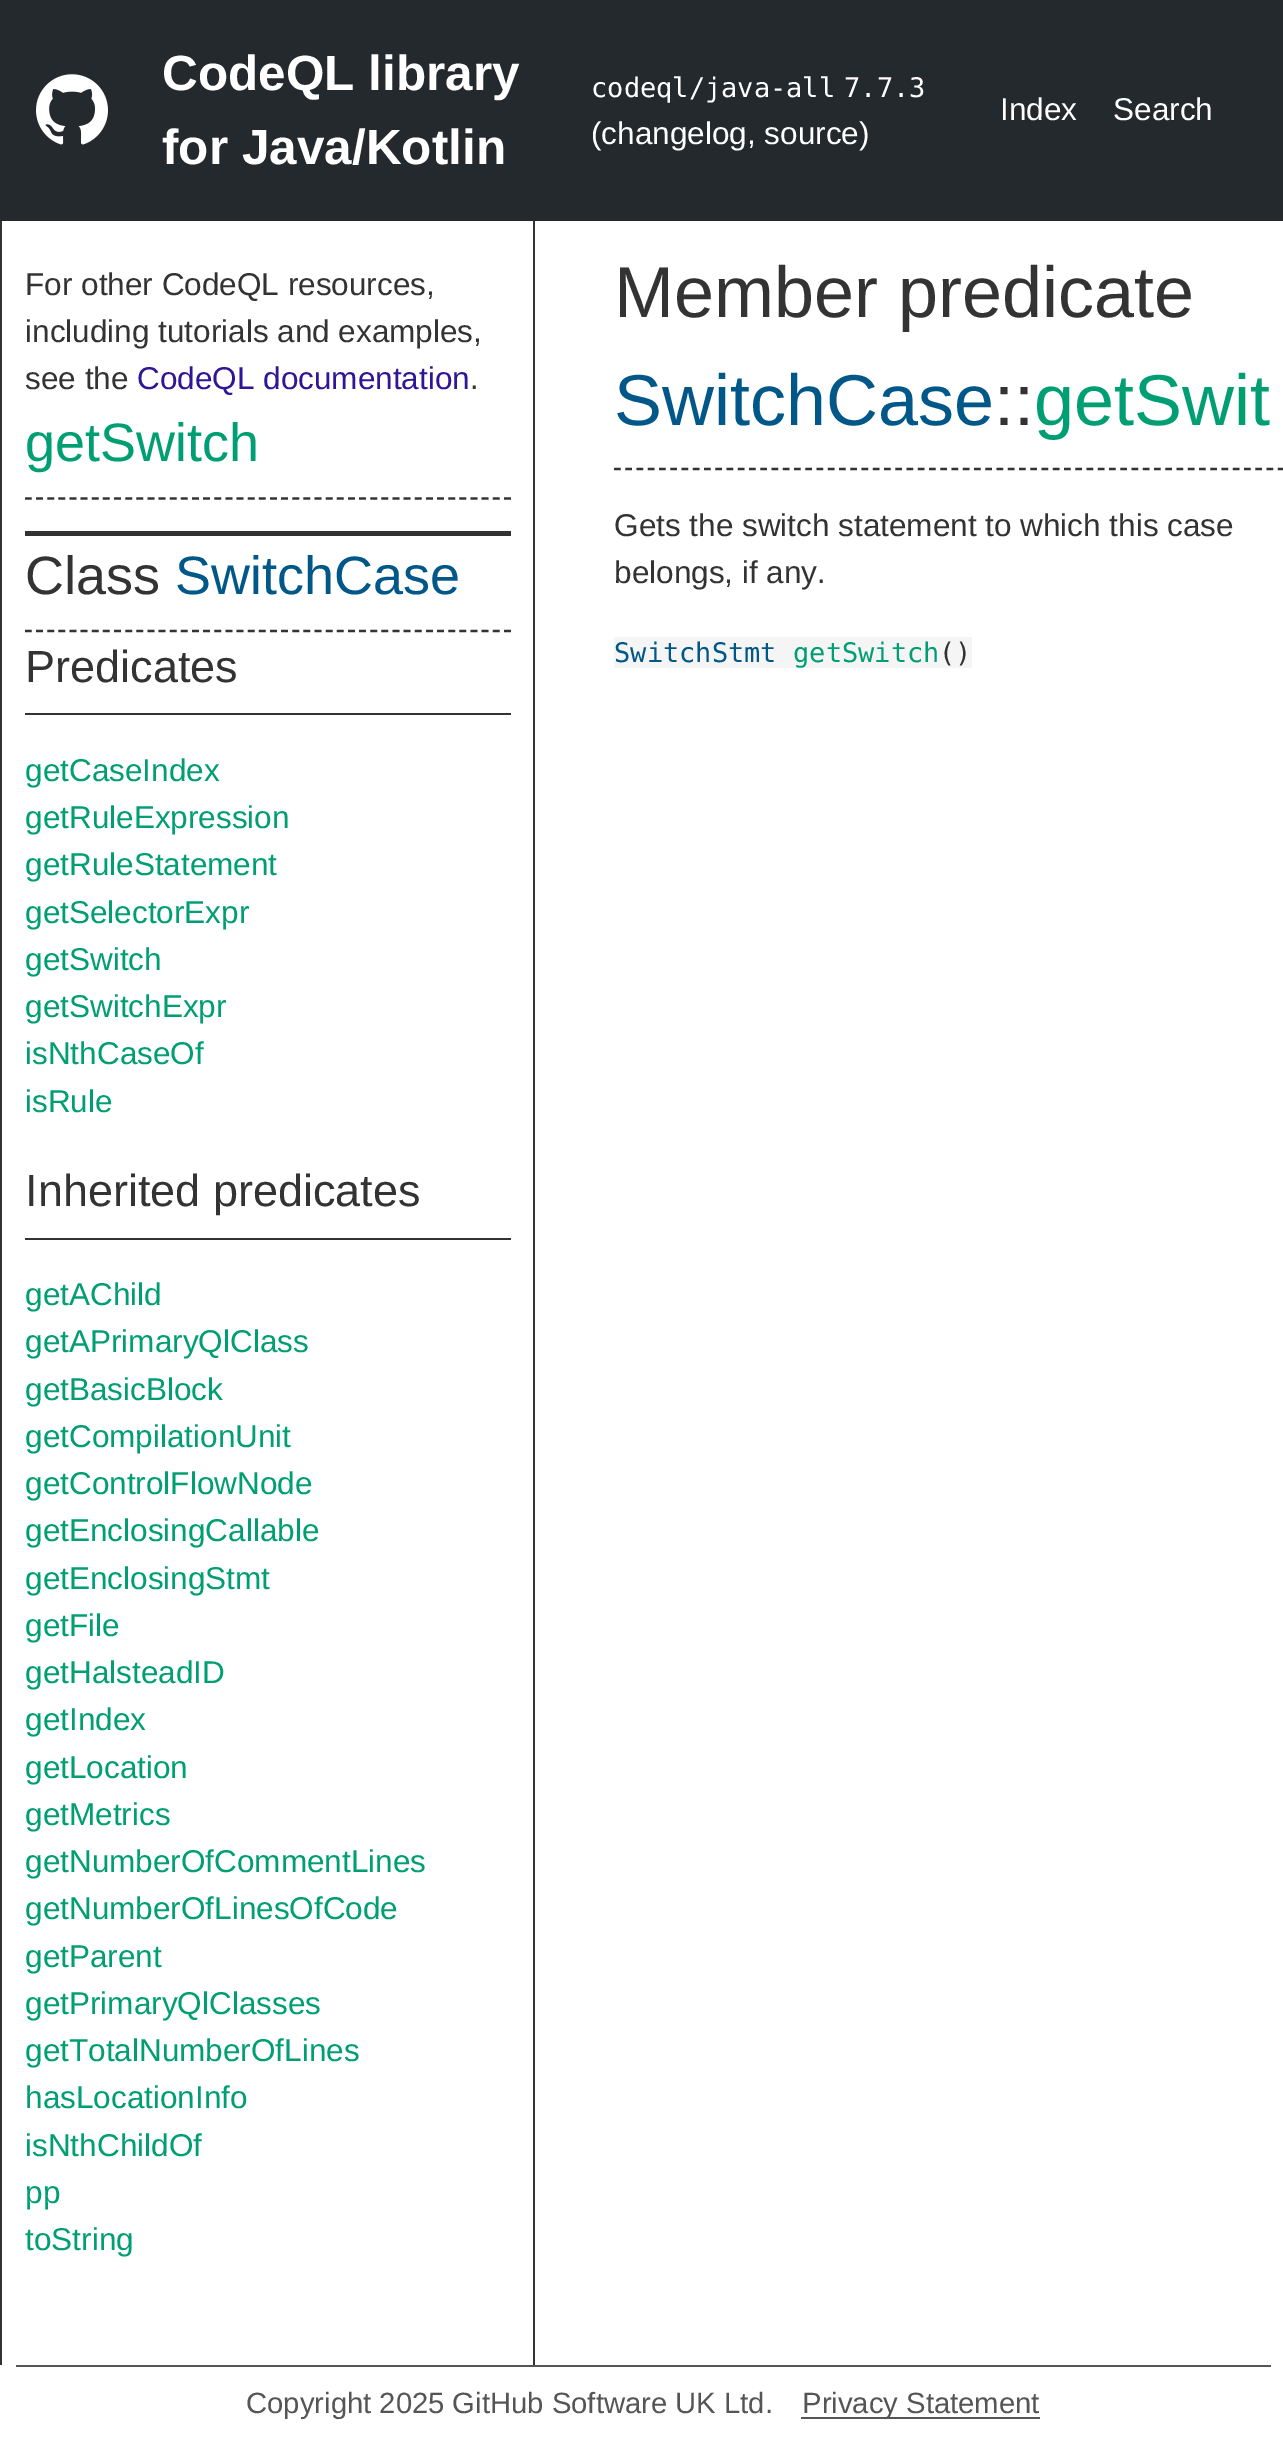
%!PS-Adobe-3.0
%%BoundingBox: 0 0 1283 2454
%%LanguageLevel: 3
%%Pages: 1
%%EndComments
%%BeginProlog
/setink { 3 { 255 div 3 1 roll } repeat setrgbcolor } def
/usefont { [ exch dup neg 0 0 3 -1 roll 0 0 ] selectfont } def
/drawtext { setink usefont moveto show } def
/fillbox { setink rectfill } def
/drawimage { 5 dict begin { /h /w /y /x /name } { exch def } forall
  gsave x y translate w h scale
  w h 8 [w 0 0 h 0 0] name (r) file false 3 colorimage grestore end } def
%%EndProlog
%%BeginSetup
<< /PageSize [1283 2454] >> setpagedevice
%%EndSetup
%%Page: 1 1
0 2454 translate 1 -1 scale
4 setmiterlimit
0 0 1283 2454 255 255 255 fillbox
0 0 1283 221 36 41 46 fillbox
(assets/img1.rgb) 36 74 72 71 drawimage
(CodeQL library) 162 90 /LiberationSans-Bold 49.5 255 255 255 drawtext
(for Java/Kotlin) 162 164 /LiberationSans-Bold 49.5 255 255 255 drawtext
(codeql/java-all) 591 97 /DejaVuSansMono-Regular 27 255 255 255 drawtext
(7.7.3) 844 97 /DejaVuSansMono-Regular 27 255 255 255 drawtext
(\(changelog, source\)) 591 144 /LiberationSans-Regular 31.5 255 255 255 drawtext
(Index) 1000 120 /LiberationSans-Regular 31.5 255 255 255 drawtext
(Search) 1113 120 /LiberationSans-Regular 31.5 255 255 255 drawtext
533 221 2 2144 51 51 51 fillbox
0 221 2 2144 51 51 51 fillbox
25 531 486 5 51 51 51 fillbox
(For other CodeQL resources,) 25 295 /LiberationSans-Regular 31.5 51 51 51 drawtext
(including tutorials and examples,) 25 342 /LiberationSans-Regular 31.5 51 51 51 drawtext
(see the) 25 389 /LiberationSans-Regular 31.5 51 51 51 drawtext
(CodeQL documentation) 137 389 /LiberationSans-Regular 31.5 47 22 149 drawtext
(.) 470 389 /LiberationSans-Regular 31.5 51 51 51 drawtext
2.2 setlinewidth
[6.75 4.39] 0 setdash
25 498.5 moveto 511 498.5 lineto stroke
(getSwitch) 25 461 /LiberationSans-Regular 54 0 158 115 drawtext
51 51 51 setink
25 631 moveto 511 631 lineto stroke
(Class) 25 594 /LiberationSans-Regular 54 51 51 51 drawtext
(SwitchCase) 175 594 /LiberationSans-Regular 54 0 87 136 drawtext
25 713 486 2 51 51 51 fillbox
(Predicates) 25 682 /LiberationSans-Regular 45 51 51 51 drawtext
(getCaseIndex) 25 781 /LiberationSans-Regular 31.5 0 158 115 drawtext
(getRuleExpression) 25 828 /LiberationSans-Regular 31.5 0 158 115 drawtext
(getRuleStatement) 25 875 /LiberationSans-Regular 31.5 0 158 115 drawtext
(getSelectorExpr) 25 923 /LiberationSans-Regular 31.5 0 158 115 drawtext
(getSwitch) 25 970 /LiberationSans-Regular 31.5 0 158 115 drawtext
(getSwitchExpr) 25 1017 /LiberationSans-Regular 31.5 0 158 115 drawtext
(isNthCaseOf) 25 1064 /LiberationSans-Regular 31.5 0 158 115 drawtext
(isRule) 25 1112 /LiberationSans-Regular 31.5 0 158 115 drawtext
25 1238 486 2 51 51 51 fillbox
(Inherited predicates) 25 1206 /LiberationSans-Regular 45 51 51 51 drawtext
(getAChild) 25 1305 /LiberationSans-Regular 31.5 0 158 115 drawtext
(getAPrimaryQlClass) 25 1352 /LiberationSans-Regular 31.5 0 158 115 drawtext
(getBasicBlock) 25 1400 /LiberationSans-Regular 31.5 0 158 115 drawtext
(getCompilationUnit) 25 1447 /LiberationSans-Regular 31.5 0 158 115 drawtext
(getControlFlowNode) 25 1494 /LiberationSans-Regular 31.5 0 158 115 drawtext
(getEnclosingCallable) 25 1541 /LiberationSans-Regular 31.5 0 158 115 drawtext
(getEnclosingStmt) 25 1589 /LiberationSans-Regular 31.5 0 158 115 drawtext
(getFile) 25 1636 /LiberationSans-Regular 31.5 0 158 115 drawtext
(getHalsteadID) 25 1683 /LiberationSans-Regular 31.5 0 158 115 drawtext
(getIndex) 25 1730 /LiberationSans-Regular 31.5 0 158 115 drawtext
(getLocation) 25 1778 /LiberationSans-Regular 31.5 0 158 115 drawtext
(getMetrics) 25 1825 /LiberationSans-Regular 31.5 0 158 115 drawtext
(getNumberOfCommentLines) 25 1872 /LiberationSans-Regular 31.5 0 158 115 drawtext
(getNumberOfLinesOfCode) 25 1919 /LiberationSans-Regular 31.5 0 158 115 drawtext
(getParent) 25 1967 /LiberationSans-Regular 31.5 0 158 115 drawtext
(getPrimaryQlClasses) 25 2014 /LiberationSans-Regular 31.5 0 158 115 drawtext
(getTotalNumberOfLines) 25 2061 /LiberationSans-Regular 31.5 0 158 115 drawtext
(hasLocationInfo) 25 2108 /LiberationSans-Regular 31.5 0 158 115 drawtext
(isNthChildOf) 25 2156 /LiberationSans-Regular 31.5 0 158 115 drawtext
(pp) 25 2203 /LiberationSans-Regular 31.5 0 158 115 drawtext
(toString) 25 2250 /LiberationSans-Regular 31.5 0 158 115 drawtext
51 51 51 setink
[6.75 4.5] 0 setdash
614 469 moveto 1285 469 lineto stroke
(Member predicate) 614 317 /LiberationSans-Regular 72 51 51 51 drawtext
(SwitchCase) 614 425 /LiberationSans-Regular 72 0 87 136 drawtext
(::) 994 425 /LiberationSans-Regular 72 51 51 51 drawtext
(getSwit) 1034 425 /LiberationSans-Regular 72 0 158 115 drawtext
(Gets the switch statement to which this case) 614 536 /LiberationSans-Regular 31.5 51 51 51 drawtext
(belongs, if any.) 614 583 /LiberationSans-Regular 31.5 51 51 51 drawtext
614 637 358 31 245 245 245 fillbox
(SwitchStmt) 614 662 /DejaVuSansMono-Regular 27 0 87 136 drawtext
(getSwitch) 793 662 /DejaVuSansMono-Regular 27 0 158 115 drawtext
(\(\)) 939 662 /DejaVuSansMono-Regular 27 51 51 51 drawtext
16 2365 1255 2 85 85 85 fillbox
(Copyright 2025 GitHub Software UK Ltd.) 246 2413 /LiberationSans-Regular 29.25 85 85 85 drawtext
801 2417 239 2 85 85 85 fillbox
(Privacy Statement) 802 2413 /LiberationSans-Regular 29.25 85 85 85 drawtext
showpage
%%EOF
